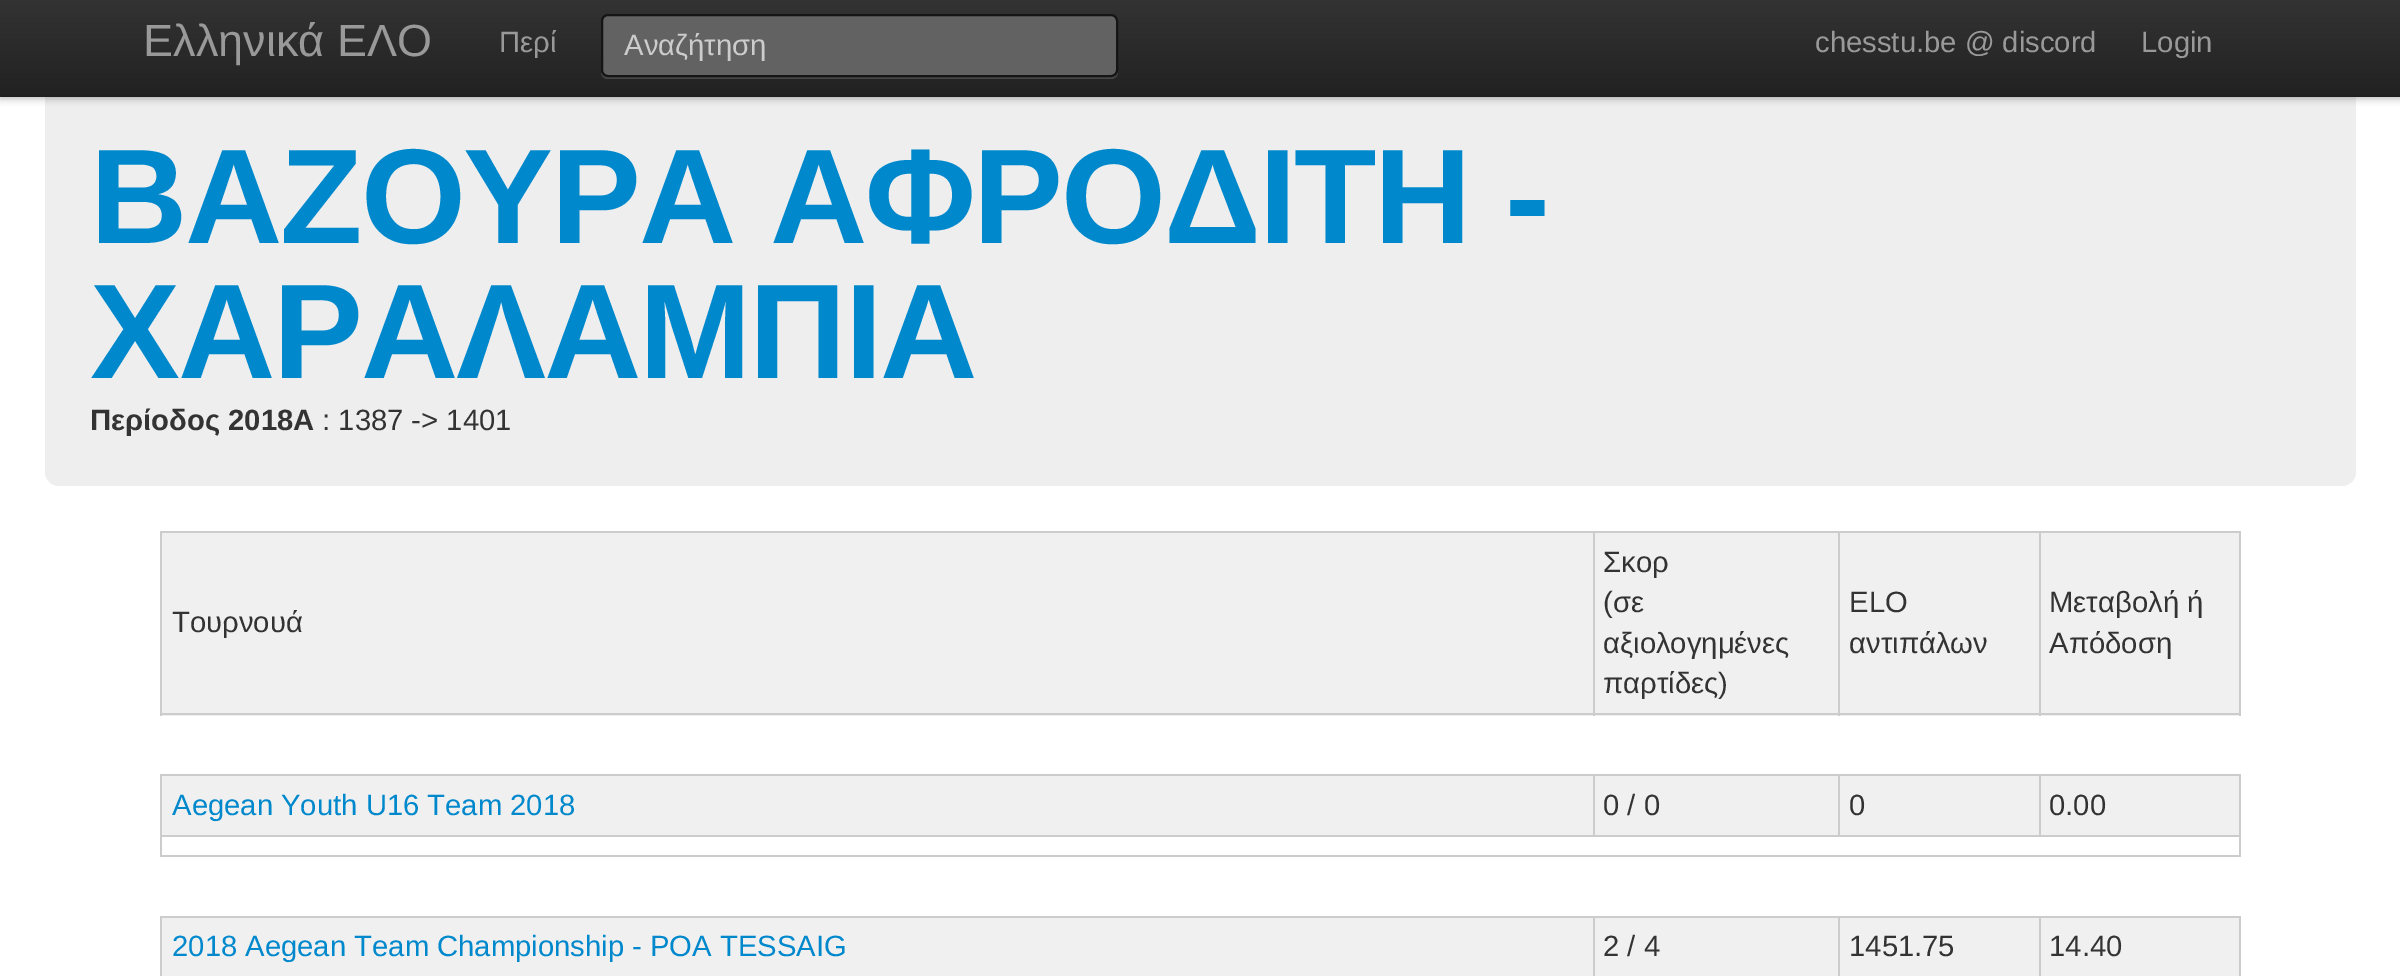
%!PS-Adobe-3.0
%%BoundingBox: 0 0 2400 976
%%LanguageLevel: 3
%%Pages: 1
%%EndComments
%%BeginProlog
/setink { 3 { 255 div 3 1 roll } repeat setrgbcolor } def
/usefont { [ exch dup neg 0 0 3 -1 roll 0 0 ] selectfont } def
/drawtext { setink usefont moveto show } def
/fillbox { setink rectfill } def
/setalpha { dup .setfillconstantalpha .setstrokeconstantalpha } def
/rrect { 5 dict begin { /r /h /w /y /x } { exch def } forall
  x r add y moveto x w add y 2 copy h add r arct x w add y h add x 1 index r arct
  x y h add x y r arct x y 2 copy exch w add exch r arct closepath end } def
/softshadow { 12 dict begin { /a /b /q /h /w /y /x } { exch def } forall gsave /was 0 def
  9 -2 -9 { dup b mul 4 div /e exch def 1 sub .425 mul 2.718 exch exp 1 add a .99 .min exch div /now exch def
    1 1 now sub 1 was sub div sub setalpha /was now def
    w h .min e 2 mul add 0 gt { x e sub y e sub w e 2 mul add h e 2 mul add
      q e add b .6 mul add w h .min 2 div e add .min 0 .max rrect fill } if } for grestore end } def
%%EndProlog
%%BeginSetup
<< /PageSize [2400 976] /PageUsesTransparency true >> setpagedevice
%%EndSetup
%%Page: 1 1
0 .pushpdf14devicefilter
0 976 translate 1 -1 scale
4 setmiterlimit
0 0 2400 976 255 255 255 fillbox
238 238 238 setink
45 86 2311 400 14 rrect fill
0 0 0 setink
0 2 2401 97 0 3.5 0.25 softshadow
gsave 0 0 moveto 2400 0 lineto 2400 95 lineto 0 95 lineto closepath clip newpath
<< /ShadingType 2 /ColorSpace /DeviceRGB /Coords [1200 0 1200 97] /Extend [true true] /Function << /FunctionType 2 /Domain [0 1] /C0 [0.2 0.2 0.2] /C1 [0.133 0.133 0.133] /N 1 >> >> shfill grestore
0 95 2400 2 31 31 31 fillbox
(Ελληνικά ΕΛΟ) 143 56 /LiberationSans-Regular 45 153 153 153 drawtext
(Περί) 499 52 /LiberationSans-Regular 29.25 153 153 153 drawtext
70 70 70 setink
601 72 moveto 601 76 604 79 608 79 curveto 1111 79 lineto 1115 79 1118 76 1118 72 curveto 1117 74 1115 76 1112 76 curveto 608 76 lineto 604 76 602 74 601 72 curveto closepath fill
98 98 98 setink
602 15 515 61 6 rrect gsave fill grestore
21 21 21 setink
2 setlinewidth
stroke
(Αναζήτηση) 624 55 /LiberationSans-Regular 29.25 204 204 204 drawtext
(chesstu.be @ discord) 1815 52 /LiberationSans-Regular 29.25 153 153 153 drawtext
(Login) 2141 52 /LiberationSans-Regular 29.25 153 153 153 drawtext
/LiberationSans-Bold 135 usefont
0 136 204 setink
90 243 moveto -2.25 0 (ΒΑΖΟΥΡΑ ΑΦΡΟΔΙΤΗ -) ashow
90 378 moveto -2.25 0 (ΧΑΡΑΛΑΜΠΙΑ) ashow
(Περίοδος 2018A) 90 430 /LiberationSans-Bold 29.25 51 51 51 drawtext
(: 1387 -> 1401) 322 430 /LiberationSans-Regular 29.25 51 51 51 drawtext
162 533 2077 183 240 240 240 fillbox
2039 531 202 2 204 204 204 fillbox
2239 531 2 185 204 204 204 fillbox
2039 713 202 2 204 204 204 fillbox
2039 531 2 185 204 204 204 fillbox
1838 531 203 2 204 204 204 fillbox
1838 713 203 2 204 204 204 fillbox
1838 531 2 185 204 204 204 fillbox
1593 531 248 2 204 204 204 fillbox
1593 713 248 2 204 204 204 fillbox
1593 531 2 185 204 204 204 fillbox
160 531 1435 2 204 204 204 fillbox
160 713 1435 2 204 204 204 fillbox
160 531 2 185 204 204 204 fillbox
(Τουρνουά) 172 632 /LiberationSans-Regular 29.25 51 51 51 drawtext
(Σκορ) 1603 572 /LiberationSans-Regular 29.25 51 51 51 drawtext
(\(σε) 1603 612 /LiberationSans-Regular 29.25 51 51 51 drawtext
(αξιολογημένες) 1603 653 /LiberationSans-Regular 29.25 51 51 51 drawtext
(παρτίδες\)) 1603 693 /LiberationSans-Regular 29.25 51 51 51 drawtext
(ELO) 1849 612 /LiberationSans-Regular 29.25 51 51 51 drawtext
(αντιπάλων) 1849 653 /LiberationSans-Regular 29.25 51 51 51 drawtext
(Μεταβολή ή) 2049 612 /LiberationSans-Regular 29.25 51 51 51 drawtext
(Απόδοση) 2049 653 /LiberationSans-Regular 29.25 51 51 51 drawtext
162 776 2077 59 240 240 240 fillbox
2039 774 202 2 204 204 204 fillbox
160 835 2081 2 204 204 204 fillbox
2039 774 2 63 204 204 204 fillbox
1838 774 203 2 204 204 204 fillbox
1838 774 2 63 204 204 204 fillbox
1593 774 248 2 204 204 204 fillbox
1593 774 2 63 204 204 204 fillbox
160 774 1435 2 204 204 204 fillbox
2239 835 2 22 204 204 204 fillbox
160 855 2081 2 204 204 204 fillbox
160 835 2 22 204 204 204 fillbox
160 774 2 63 204 204 204 fillbox
(Aegean Youth U16 Team 2018) 172 815 /LiberationSans-Regular 29.25 0 136 204 drawtext
(0 / 0) 1603 815 /LiberationSans-Regular 29.25 51 51 51 drawtext
(0) 1849 815 /LiberationSans-Regular 29.25 51 51 51 drawtext
2239 774 2 63 204 204 204 fillbox
(0.00) 2049 815 /LiberationSans-Regular 29.25 51 51 51 drawtext
162 918 2077 58 240 240 240 fillbox
2039 916 202 2 204 204 204 fillbox
2039 916 2 60 204 204 204 fillbox
1838 916 203 2 204 204 204 fillbox
1838 916 2 60 204 204 204 fillbox
1593 916 248 2 204 204 204 fillbox
1593 916 2 60 204 204 204 fillbox
160 916 1435 2 204 204 204 fillbox
160 916 2 60 204 204 204 fillbox
(2018 Aegean Team Championship - POA TESSAIG) 172 956 /LiberationSans-Regular 29.25 0 136 204 drawtext
(2 / 4) 1603 956 /LiberationSans-Regular 29.25 51 51 51 drawtext
(1451.75) 1849 956 /LiberationSans-Regular 29.25 51 51 51 drawtext
2239 916 2 60 204 204 204 fillbox
(14.40) 2049 956 /LiberationSans-Regular 29.25 51 51 51 drawtext
.poppdf14devicefilter showpage
%%EOF
